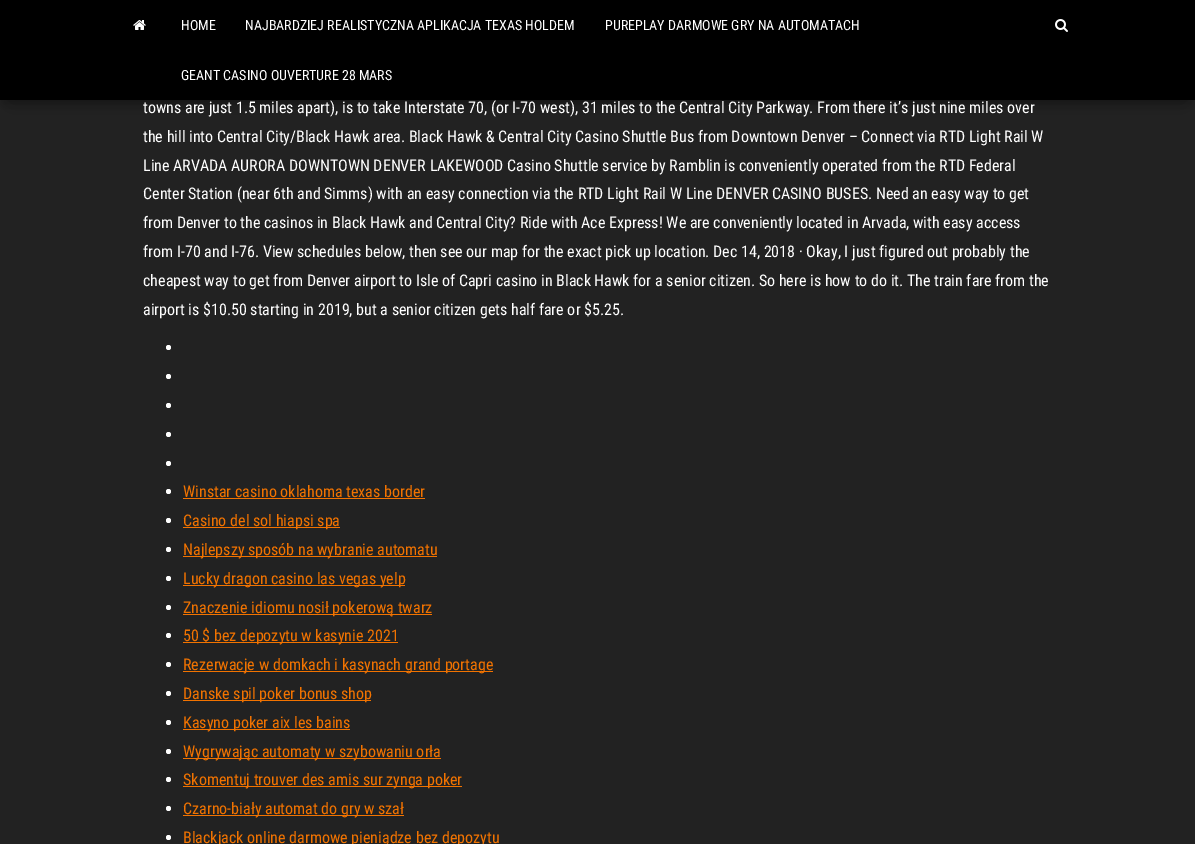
%!PS-Adobe-3.0
%%BoundingBox: 0 0 1195 844
%%LanguageLevel: 3
%%Pages: 1
%%EndComments
%%BeginProlog
/setink { 3 { 255 div 3 1 roll } repeat setrgbcolor } def
/usefont { [ exch dup neg 0 0 3 -1 roll 0 0 ] selectfont } def
/drawtext { setink usefont moveto show } def
/fillbox { setink rectfill } def
/setalpha { dup .setfillconstantalpha .setstrokeconstantalpha } def
/disc { newpath 0 360 arc closepath } def
/rrect { 5 dict begin { /r /h /w /y /x } { exch def } forall
  x r add y moveto x w add y 2 copy h add r arct x w add y h add x 1 index r arct
  x y h add x y r arct x y 2 copy exch w add exch r arct closepath end } def
/softshadow { 12 dict begin { /a /b /q /h /w /y /x } { exch def } forall gsave /was 0 def
  9 -2 -9 { dup b mul 4 div /e exch def 1 sub .425 mul 2.718 exch exp 1 add a .99 .min exch div /now exch def
    1 1 now sub 1 was sub div sub setalpha /was now def
    w h .min e 2 mul add 0 gt { x e sub y e sub w e 2 mul add h e 2 mul add
      q e add b .6 mul add w h .min 2 div e add .min 0 .max rrect fill } if } for grestore end } def
/drawimage { 5 dict begin { /h /w /y /x /name } { exch def } forall
  gsave x y translate w h scale
  w h 8 [w 0 0 h 0 0] name (r) file false 3 colorimage grestore end } def
%%EndProlog
%%BeginSetup
<< /PageSize [1195 844] /PageUsesTransparency true >> setpagedevice
%%EndSetup
%%Page: 1 1
0 .pushpdf14devicefilter
0 844 translate 1 -1 scale
4 setmiterlimit
0 0 1195 844 34 34 34 fillbox
0 0 0 setink
5 13 1185 90 0 5 0.2 softshadow
0 3 1195 100 0 10 0.12 softshadow
12 22 1171 76 0 10 0.42 softshadow
0 0 1195 100 0 0 0 fillbox
(assets/img1.rgb) 133 20 13 10 drawimage
(HOME) 181 30 /RobotoCondensed-Regular 14 255 255 255 drawtext
(NAJBARDZIEJ REALISTYCZNA APLIKACJA TEXAS HOLDEM) 245 30 /RobotoCondensed-Regular 14 255 255 255 drawtext
(PUREPLAY DARMOWE GRY NA AUTOMATACH) 605 30 /RobotoCondensed-Regular 14 255 255 255 drawtext
(GEANT CASINO OUVERTURE 28 MARS) 181 80 /RobotoCondensed-Regular 14 255 255 255 drawtext
(assets/img2.rgb) 1055 19 13 13 drawimage
(towns are just 1.5 miles apart\), is to take Interstate 70, \(or I-70 west\), 31 miles to the Central City Parkway. From there it’s just nine miles over) 143 113 /RobotoCondensed-Regular 16 255 255 255 drawtext
(the hill into Central City/Black Hawk area. Black Hawk & Central City Casino Shuttle Bus from Downtown Denver – Connect via RTD Light Rail W) 143 142 /RobotoCondensed-Regular 16 255 255 255 drawtext
(Line ARVADA AURORA DOWNTOWN DENVER LAKEWOOD Casino Shuttle service by Ramblin is conveniently operated from the RTD Federal) 143 171 /RobotoCondensed-Regular 16 255 255 255 drawtext
(Center Station \(near 6th and Simms\) with an easy connection via the RTD Light Rail W Line DENVER CASINO BUSES. Need an easy way to get) 143 199 /RobotoCondensed-Regular 16 255 255 255 drawtext
(from Denver to the casinos in Black Hawk and Central City? Ride with Ace Express! We are conveniently located in Arvada, with easy access) 143 228 /RobotoCondensed-Regular 16 255 255 255 drawtext
(from I-70 and I-76. View schedules below, then see our map for the exact pick up location. Dec 14, 2018 · Okay, I just figured out probably the) 143 257 /RobotoCondensed-Regular 16 255 255 255 drawtext
(cheapest way to get from Denver airport to Isle of Capri casino in Black Hawk for a senior citizen. So here is how to do it. The train fare from the) 143 286 /RobotoCondensed-Regular 16 255 255 255 drawtext
(airport is $10.50 starting in 2019, but a senior citizen gets half fare or $5.25.) 143 315 /RobotoCondensed-Regular 16 255 255 255 drawtext
168.5 347.5 2.5 disc fill
168.5 376.5 2.5 disc fill
168.5 405.5 2.5 disc fill
168.5 434.5 2.5 disc fill
168.5 463.5 2.5 disc fill
168.5 491.5 2.5 disc fill
(Winstar casino oklahoma texas border) 183 497 /RobotoCondensed-Regular 16 242 115 0 drawtext
183 498 242 1 242 115 0 fillbox
255 255 255 setink
168.5 520.5 2.5 disc fill
183 527 157 1 242 115 0 fillbox
(Casino del sol hiapsi spa) 183 526 /RobotoCondensed-Regular 16 242 115 0 drawtext
255 255 255 setink
168.5 549.5 2.5 disc fill
183 556 254 1 242 115 0 fillbox
(Najlepszy sposób na wybranie automatu) 183 555 /RobotoCondensed-Regular 16 242 115 0 drawtext
255 255 255 setink
168.5 578.5 2.5 disc fill
183 585 222 1 242 115 0 fillbox
(Lucky dragon casino las vegas yelp) 183 584 /RobotoCondensed-Regular 16 242 115 0 drawtext
255 255 255 setink
168.5 607.5 2.5 disc fill
183 614 249 1 242 115 0 fillbox
(Znaczenie idiomu nosił pokerową twarz) 183 613 /RobotoCondensed-Regular 16 242 115 0 drawtext
255 255 255 setink
168.5 635.5 2.5 disc fill
183 642 215 1 242 115 0 fillbox
(50 $ bez depozytu w kasynie 2021) 183 641 /RobotoCondensed-Regular 16 242 115 0 drawtext
255 255 255 setink
168.5 664.5 2.5 disc fill
183 671 310 1 242 115 0 fillbox
(Rezerwacje w domkach i kasynach grand portage) 183 670 /RobotoCondensed-Regular 16 242 115 0 drawtext
255 255 255 setink
168.5 693.5 2.5 disc fill
183 700 188 1 242 115 0 fillbox
(Danske spil poker bonus shop) 183 699 /RobotoCondensed-Regular 16 242 115 0 drawtext
255 255 255 setink
168.5 722.5 2.5 disc fill
183 729 167 1 242 115 0 fillbox
(Kasyno poker aix les bains) 183 728 /RobotoCondensed-Regular 16 242 115 0 drawtext
255 255 255 setink
168.5 751.5 2.5 disc fill
183 758 258 1 242 115 0 fillbox
(Wygrywając automaty w szybowaniu orła) 183 757 /RobotoCondensed-Regular 16 242 115 0 drawtext
255 255 255 setink
168.5 779.5 2.5 disc fill
183 786 279 1 242 115 0 fillbox
(Skomentuj trouver des amis sur zynga poker) 183 785 /RobotoCondensed-Regular 16 242 115 0 drawtext
255 255 255 setink
168.5 808.5 2.5 disc fill
183 815 221 1 242 115 0 fillbox
(Czarno-biały automat do gry w szał) 183 814 /RobotoCondensed-Regular 16 242 115 0 drawtext
255 255 255 setink
168.5 837.5 2.5 disc fill
(Blackjack online darmowe pieniądze bez depozytu) 183 843 /RobotoCondensed-Regular 16 242 115 0 drawtext
.poppdf14devicefilter showpage
%%EOF
